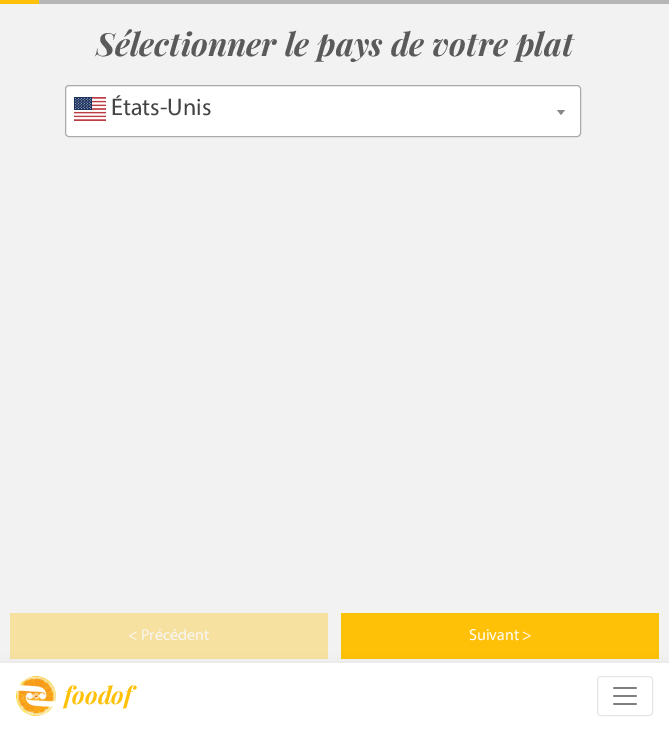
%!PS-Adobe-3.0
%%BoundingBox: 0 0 669 729
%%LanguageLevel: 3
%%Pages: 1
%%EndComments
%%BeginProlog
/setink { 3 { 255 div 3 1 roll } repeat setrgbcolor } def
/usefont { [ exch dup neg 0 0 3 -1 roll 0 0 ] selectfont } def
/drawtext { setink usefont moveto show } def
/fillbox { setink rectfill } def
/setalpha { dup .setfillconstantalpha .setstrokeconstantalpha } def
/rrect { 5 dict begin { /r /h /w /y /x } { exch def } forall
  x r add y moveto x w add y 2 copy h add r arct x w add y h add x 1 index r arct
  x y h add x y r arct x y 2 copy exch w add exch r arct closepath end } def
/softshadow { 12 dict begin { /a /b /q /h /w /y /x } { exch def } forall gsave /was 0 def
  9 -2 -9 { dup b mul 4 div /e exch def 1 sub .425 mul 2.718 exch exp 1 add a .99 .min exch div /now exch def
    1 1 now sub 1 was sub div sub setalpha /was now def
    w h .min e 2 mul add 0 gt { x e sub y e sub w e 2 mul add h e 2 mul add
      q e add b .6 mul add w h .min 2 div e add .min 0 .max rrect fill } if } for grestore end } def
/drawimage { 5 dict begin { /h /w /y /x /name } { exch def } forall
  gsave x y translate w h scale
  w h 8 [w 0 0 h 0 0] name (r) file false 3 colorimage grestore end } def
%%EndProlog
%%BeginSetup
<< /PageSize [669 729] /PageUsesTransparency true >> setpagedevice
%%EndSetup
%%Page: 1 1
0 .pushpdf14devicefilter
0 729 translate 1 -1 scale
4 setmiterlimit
0 0 669 729 242 242 242 fillbox
(Sélectionner le pays de votre plat) 96 56 /PlayfairDisplay-BoldItalic 32 90 90 90 drawtext
39 0 630 4 182 182 182 fillbox
0 0 39 4 255 193 7 fillbox
255 255 255 setink
65.5 85.5 515 51 3.5 rrect gsave fill grestore
170 170 170 setink
stroke
(assets/img1.rgb) 74 97 32 24 drawimage
(États-Unis) 111 115 /Myriad-Regular 24 68 68 68 drawtext
136 136 136 setink
557 110 moveto 565 110 lineto 561 115 lineto closepath fill
10 613 318 46 247 225 160 fillbox
(< Précédent) 128 640 /Myriad-Regular 16 247 247 247 drawtext
341 613 318 46 255 193 7 fillbox
(Suivant >) 469 640 /Myriad-Regular 16 255 255 255 drawtext
0 0 0 setink
0 671 669 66 0 8 0.15 softshadow
0 663 669 66 255 255 255 fillbox
(assets/img2.rgb) 16 676 40 40 drawimage
(foodof) 64 704 /PlayfairDisplay-BoldItalic 24 255 193 7 drawtext
230 230 230 setink
597.5 676.5 55 39 3.5 rrect stroke
(assets/img3.rgb) 613 687 24 18 drawimage
.poppdf14devicefilter showpage
%%EOF
